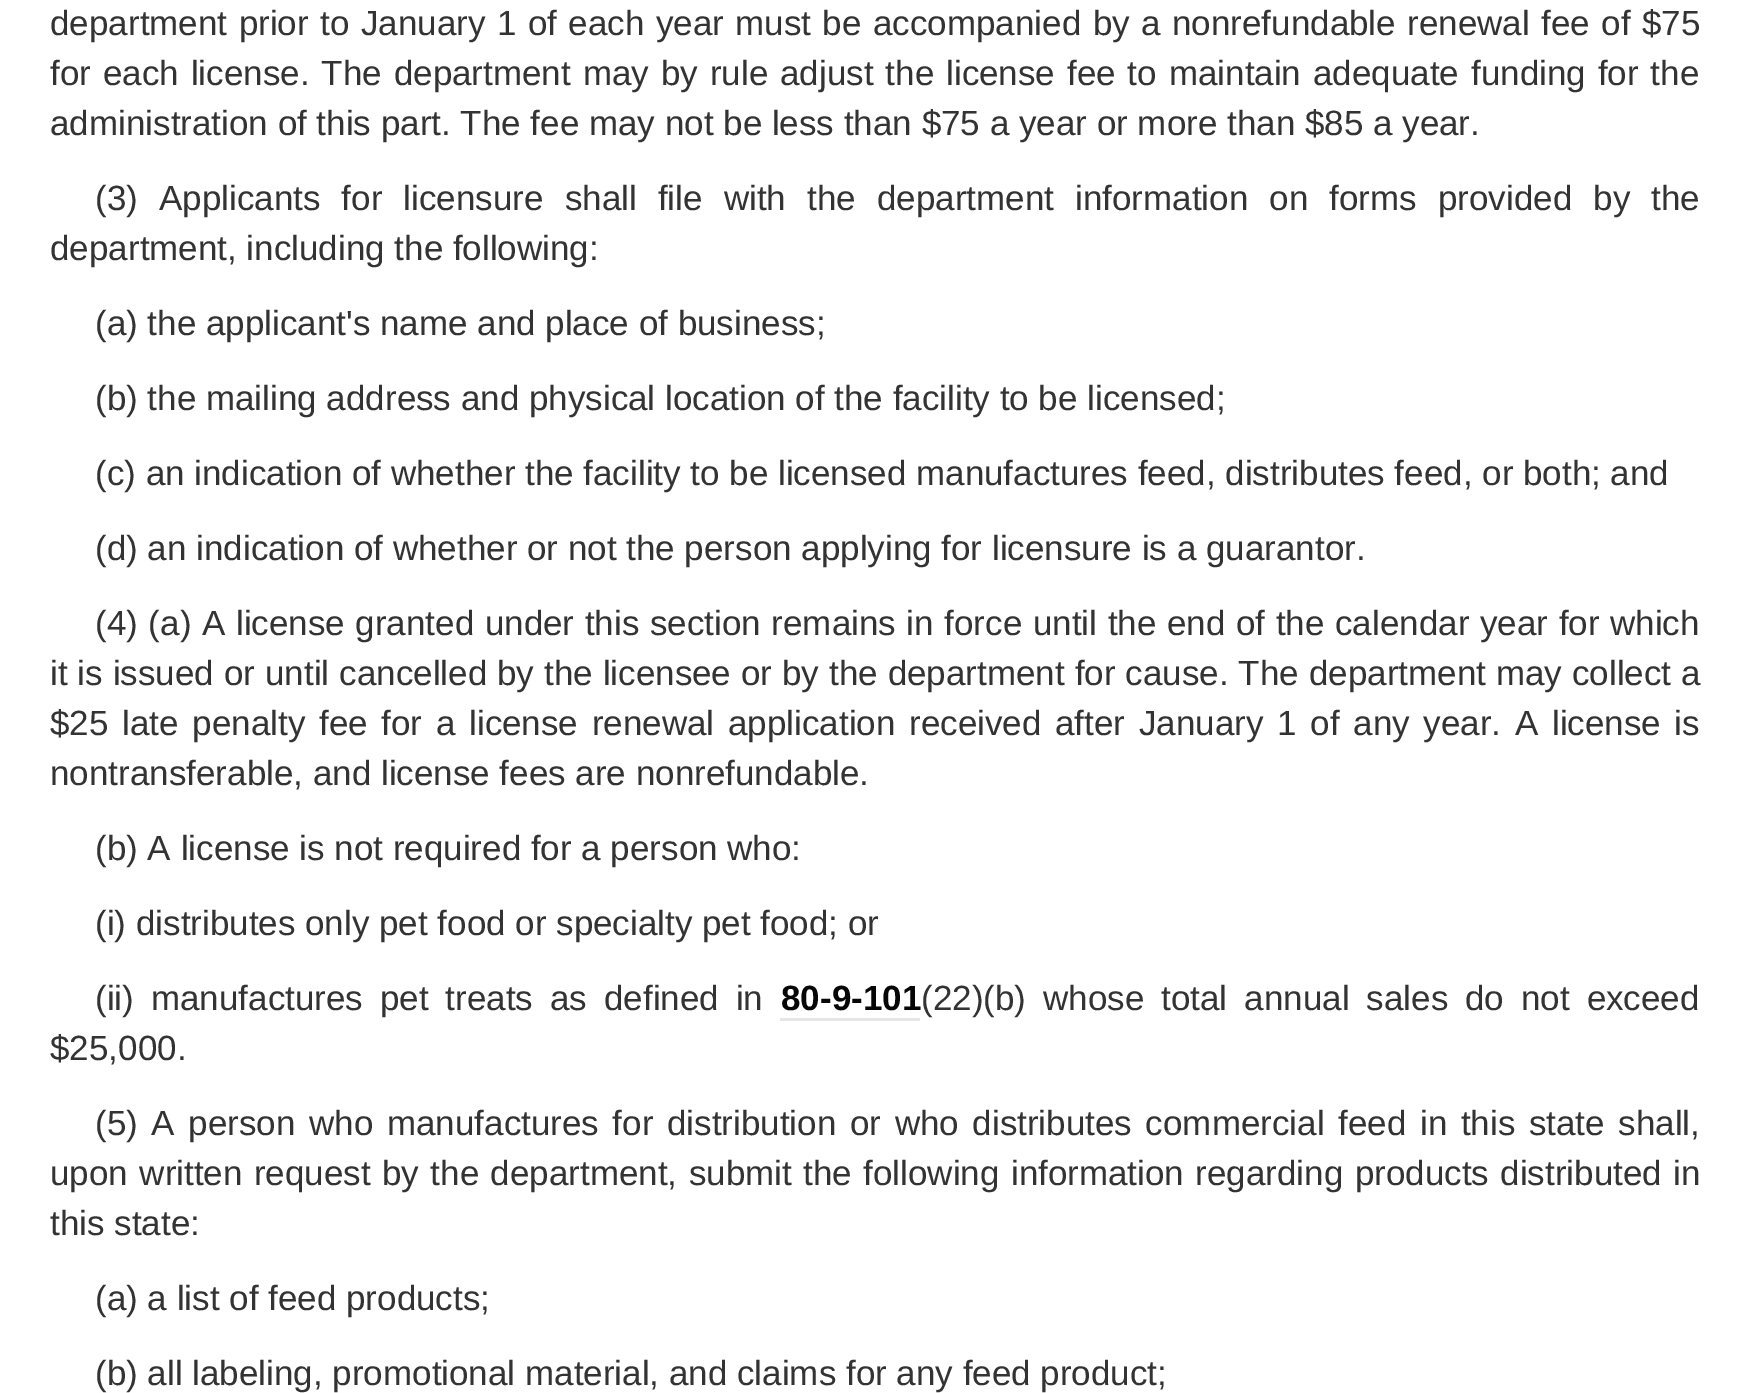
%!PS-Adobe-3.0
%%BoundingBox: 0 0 1750 1393
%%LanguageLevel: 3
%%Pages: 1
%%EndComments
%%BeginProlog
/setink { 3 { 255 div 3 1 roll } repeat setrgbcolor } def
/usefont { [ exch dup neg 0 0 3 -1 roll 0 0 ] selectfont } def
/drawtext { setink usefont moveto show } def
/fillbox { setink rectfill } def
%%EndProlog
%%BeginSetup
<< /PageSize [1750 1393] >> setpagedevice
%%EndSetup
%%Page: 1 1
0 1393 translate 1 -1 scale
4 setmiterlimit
0 0 1750 1393 255 255 255 fillbox
/LiberationSans-Regular 35 usefont
51 51 51 setink
50 35 moveto 1.75 0 32 (department prior to January 1 of each year must be accompanied by a nonrefundable renewal fee of $75) widthshow
50 85 moveto 2.25 0 32 (for each license. The department may by rule adjust the license fee to maintain adequate funding for the) widthshow
(administration of this part. The fee may not be less than $75 a year or more than $85 a year.) 50 135 /LiberationSans-Regular 35 51 51 51 drawtext
95 210 moveto 11.4 0 32 (\(3\) Applicants for licensure shall file with the department information on forms provided by the) widthshow
(department, including the following:) 50 260 /LiberationSans-Regular 35 51 51 51 drawtext
(\(a\) the applicant's name and place of business;) 95 335 /LiberationSans-Regular 35 51 51 51 drawtext
(\(b\) the mailing address and physical location of the facility to be licensed;) 95 410 /LiberationSans-Regular 35 51 51 51 drawtext
(\(c\) an indication of whether the facility to be licensed manufactures feed, distributes feed, or both; and) 95 485 /LiberationSans-Regular 35 51 51 51 drawtext
(\(d\) an indication of whether or not the person applying for licensure is a guarantor.) 95 560 /LiberationSans-Regular 35 51 51 51 drawtext
95 635 moveto 0.9 0 32 (\(4\) \(a\) A license granted under this section remains in force until the end of the calendar year for which) widthshow
50 685 moveto 0.25 0 32 (it is issued or until cancelled by the licensee or by the department for cause. The department may collect a) widthshow
50 735 moveto 4 0 32 ($25 late penalty fee for a license renewal application received after January 1 of any year. A license is) widthshow
(nontransferable, and license fees are nonrefundable.) 50 785 /LiberationSans-Regular 35 51 51 51 drawtext
(\(b\) A license is not required for a person who:) 95 860 /LiberationSans-Regular 35 51 51 51 drawtext
(\(i\) distributes only pet food or specialty pet food; or) 95 935 /LiberationSans-Regular 35 51 51 51 drawtext
95 1010 moveto 7.25 0 32 (\(ii\) manufactures pet treats as defined in) widthshow
(80-9-101) 781 1010 /LiberationSans-Bold 35 7 7 7 drawtext
780 1018 140 3 230 230 230 fillbox
/LiberationSans-Regular 35 usefont
51 51 51 setink
921 1010 moveto 7.25 0 32 (\(22\)\(b\) whose total annual sales do not exceed) widthshow
($25,000.) 50 1060 /LiberationSans-Regular 35 51 51 51 drawtext
95 1135 moveto 3.9 0 32 (\(5\) A person who manufactures for distribution or who distributes commercial feed in this state shall,) widthshow
50 1185 moveto 1.7 0 32 (upon written request by the department, submit the following information regarding products distributed in) widthshow
(this state:) 50 1235 /LiberationSans-Regular 35 51 51 51 drawtext
(\(a\) a list of feed products;) 95 1310 /LiberationSans-Regular 35 51 51 51 drawtext
(\(b\) all labeling, promotional material, and claims for any feed product;) 95 1385 /LiberationSans-Regular 35 51 51 51 drawtext
showpage
%%EOF
